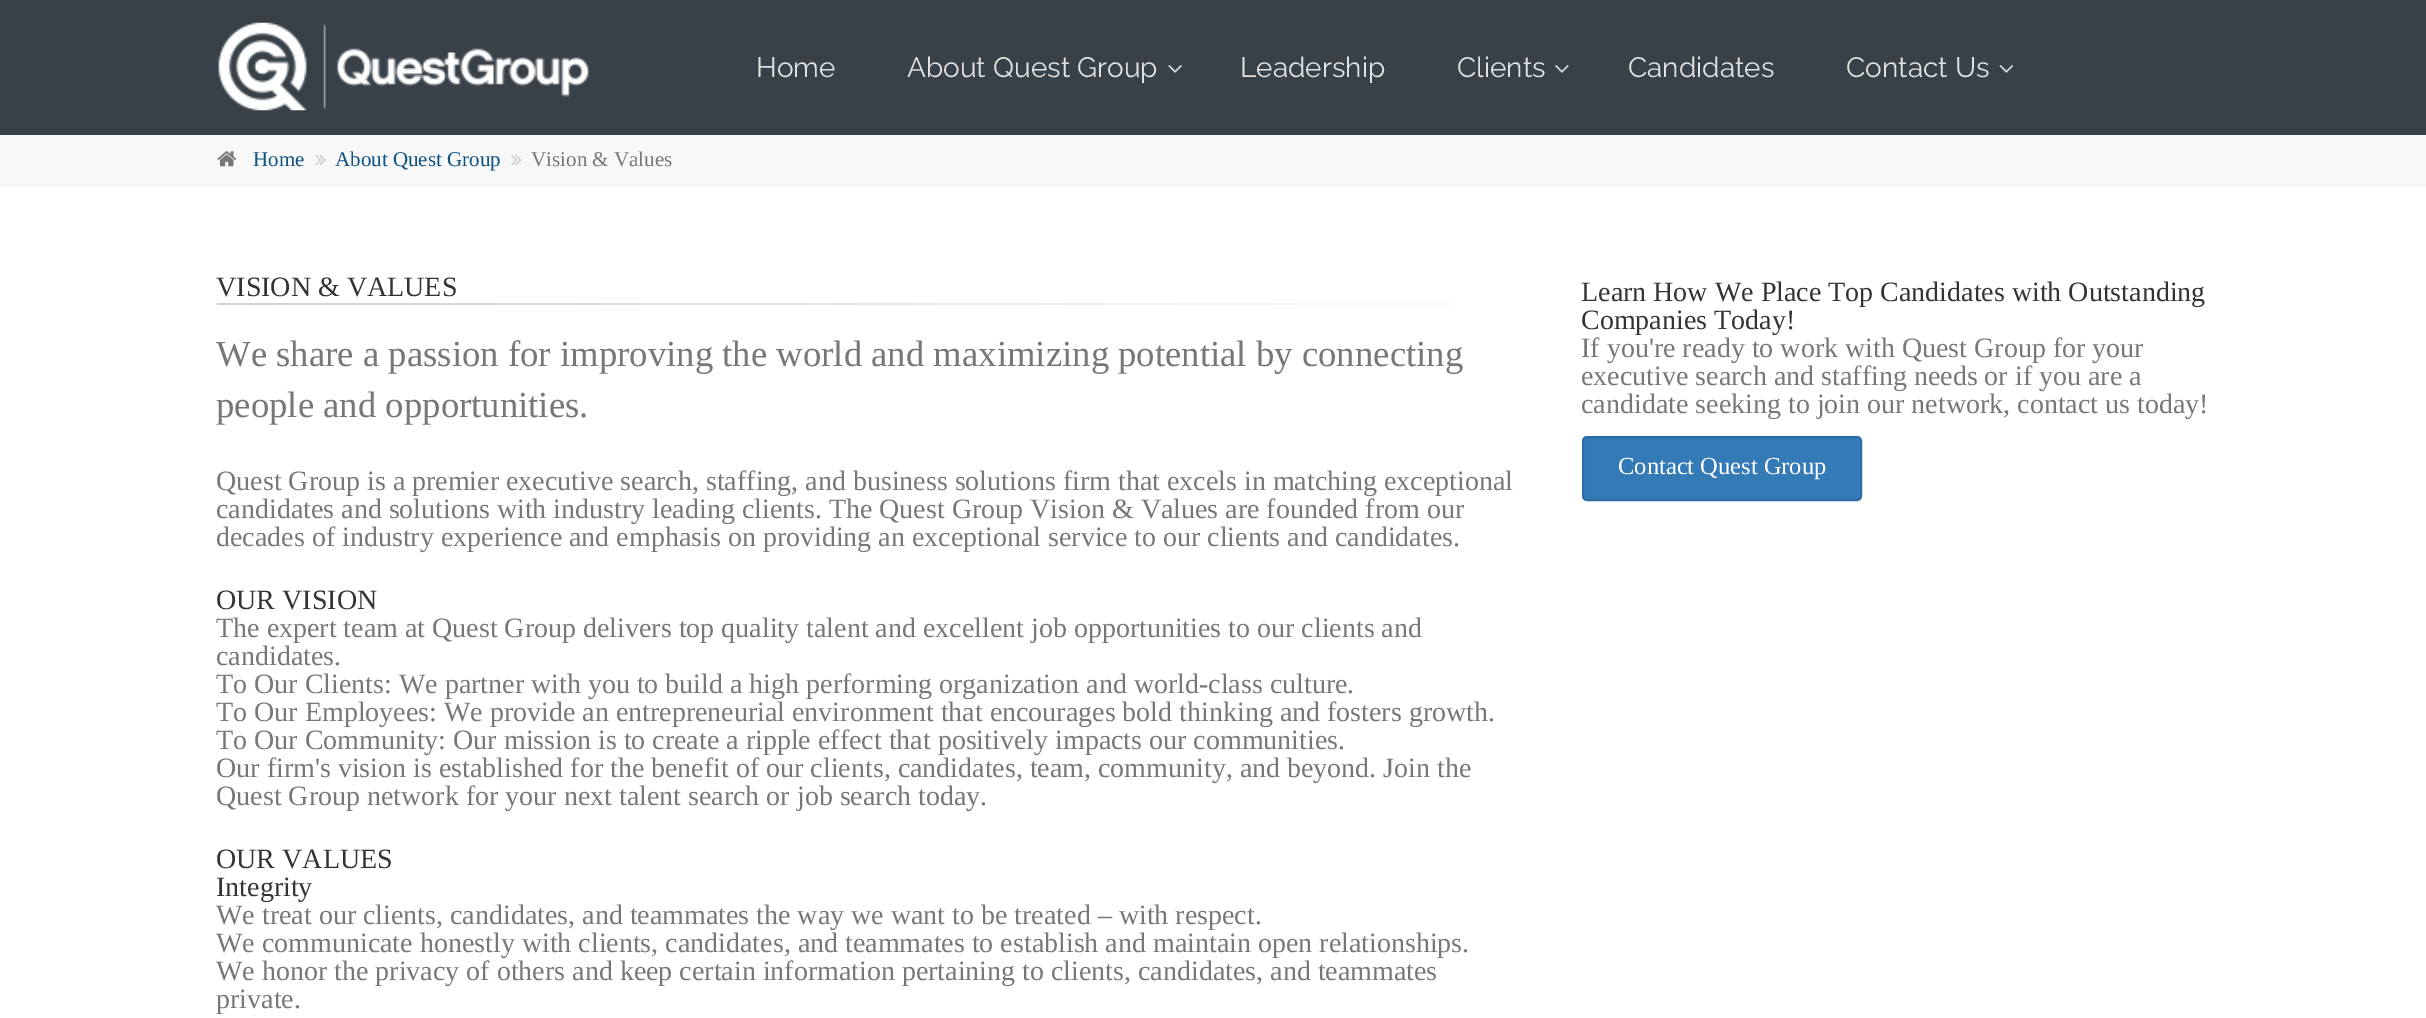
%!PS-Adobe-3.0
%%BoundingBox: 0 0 2426 1018
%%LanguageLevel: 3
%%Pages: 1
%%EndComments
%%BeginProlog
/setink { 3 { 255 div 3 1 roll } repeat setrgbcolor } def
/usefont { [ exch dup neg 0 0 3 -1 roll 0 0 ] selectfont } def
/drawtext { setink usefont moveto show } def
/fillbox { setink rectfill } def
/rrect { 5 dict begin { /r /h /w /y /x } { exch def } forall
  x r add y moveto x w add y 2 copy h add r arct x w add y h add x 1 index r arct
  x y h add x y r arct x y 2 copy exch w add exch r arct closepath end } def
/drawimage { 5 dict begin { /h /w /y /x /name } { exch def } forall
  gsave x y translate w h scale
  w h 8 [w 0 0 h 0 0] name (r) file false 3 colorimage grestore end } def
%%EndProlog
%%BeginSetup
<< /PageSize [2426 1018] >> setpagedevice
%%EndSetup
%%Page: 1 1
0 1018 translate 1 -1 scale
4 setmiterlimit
0 0 2426 1018 255 255 255 fillbox
0 0 2426 135 56 65 71 fillbox
(assets/img1.rgb) 218 22 371 89 drawimage
(Home) 756 77 /Raleway-Regular 28 225 225 225 drawtext
(About Quest Group) 907 77 /Raleway-Regular 28 225 225 225 drawtext
(assets/img2.rgb) 1168 65 14 8 drawimage
(Leadership) 1240 77 /Raleway-Regular 28 225 225 225 drawtext
(Clients) 1457 77 /Raleway-Regular 28 225 225 225 drawtext
(assets/img3.rgb) 1555 65 14 8 drawimage
(Candidates) 1628 77 /Raleway-Regular 28 225 225 225 drawtext
(Contact Us) 1846 77 /Raleway-Regular 28 225 225 225 drawtext
(assets/img4.rgb) 1999 65 15 8 drawimage
0 135 2426 49 248 248 248 fillbox
0 184 2426 2 244 244 244 fillbox
(assets/img5.rgb) 217 151 20 16 drawimage
(Home) 253 166 /LiberationSerif-Regular 21 16 83 130 drawtext
(assets/img6.rgb) 315 154 11 12 drawimage
(About Quest Group) 335 166 /LiberationSerif-Regular 21 16 83 130 drawtext
(assets/img6.rgb) 511 154 11 12 drawimage
(Vision & Values) 531 166 /LiberationSerif-Regular 21 119 119 119 drawtext
(VISION & VALUES) 216 296 /LiberationSerif-Regular 28 51 51 51 drawtext
gsave 217 303 moveto 1454 303 lineto 1454 305 lineto 217 305 lineto closepath clip newpath
<< /ShadingType 2 /ColorSpace /DeviceRGB /Coords [217 304 1530 304] /Extend [true true] /Function << /FunctionType 3 /Domain [0 1] /Functions [<< /FunctionType 2 /Domain [0 1] /C0 [0.82 0.82 0.82] /C1 [0.878 0.878 0.878] /N 1 >> << /FunctionType 2 /Domain [0 1] /C0 [0.878 0.878 0.878] /C1 [0.949 0.949 0.949] /N 1 >> << /FunctionType 2 /Domain [0 1] /C0 [0.949 0.949 0.949] /C1 [1 1 1] /N 1 >>] /Bounds [0.35 0.7] /Encode [0 1 0 1 0 1] >> >> shfill grestore
(We share a passion for improving the world and maximizing potential by connecting) 216 366 /LiberationSerif-Regular 36.75 119 119 119 drawtext
(people and opportunities.) 216 417 /LiberationSerif-Regular 36.75 119 119 119 drawtext
(Quest Group is a premier executive search, staffing, and business solutions firm that excels in matching exceptional) 216 490 /LiberationSerif-Regular 28 119 119 119 drawtext
(candidates and solutions with industry leading clients. The Quest Group Vision & Values are founded from our) 216 518 /LiberationSerif-Regular 28 119 119 119 drawtext
(decades of industry experience and emphasis on providing an exceptional service to our clients and candidates.) 216 546 /LiberationSerif-Regular 28 119 119 119 drawtext
(OUR VISION) 216 609 /LiberationSerif-Regular 28 51 51 51 drawtext
(The expert team at Quest Group delivers top quality talent and excellent job opportunities to our clients and) 216 637 /LiberationSerif-Regular 28 119 119 119 drawtext
(candidates.) 216 665 /LiberationSerif-Regular 28 119 119 119 drawtext
(To Our Clients: We partner with you to build a high performing organization and world-class culture.) 216 693 /LiberationSerif-Regular 28 119 119 119 drawtext
(To Our Employees: We provide an entrepreneurial environment that encourages bold thinking and fosters growth.) 216 721 /LiberationSerif-Regular 28 119 119 119 drawtext
(To Our Community: Our mission is to create a ripple effect that positively impacts our communities.) 216 749 /LiberationSerif-Regular 28 119 119 119 drawtext
(Our firm's vision is established for the benefit of our clients, candidates, team, community, and beyond. Join the) 216 777 /LiberationSerif-Regular 28 119 119 119 drawtext
(Quest Group network for your next talent search or job search today.) 216 805 /LiberationSerif-Regular 28 119 119 119 drawtext
(OUR VALUES) 216 868 /LiberationSerif-Regular 28 51 51 51 drawtext
(Integrity) 216 896 /LiberationSerif-Regular 28 51 51 51 drawtext
(We treat our clients, candidates, and teammates the way we want to be treated – with respect.) 216 924 /LiberationSerif-Regular 28 119 119 119 drawtext
(We communicate honestly with clients, candidates, and teammates to establish and maintain open relationships.) 216 952 /LiberationSerif-Regular 28 119 119 119 drawtext
(We honor the privacy of others and keep certain information pertaining to clients, candidates, and teammates) 216 980 /LiberationSerif-Regular 28 119 119 119 drawtext
(private.) 216 1008 /LiberationSerif-Regular 28 119 119 119 drawtext
(Learn How We Place Top Candidates with Outstanding) 1581 301 /LiberationSerif-Regular 28 51 51 51 drawtext
(Companies Today!) 1581 329 /LiberationSerif-Regular 28 51 51 51 drawtext
(If you're ready to work with Quest Group for your) 1581 357 /LiberationSerif-Regular 28 119 119 119 drawtext
(executive search and staffing needs or if you are a) 1581 385 /LiberationSerif-Regular 28 119 119 119 drawtext
(candidate seeking to join our network, contact us today!) 1581 413 /LiberationSerif-Regular 28 119 119 119 drawtext
51 122 183 setink
1583 437 278 63 4 rrect gsave fill grestore
46 109 164 setink
2 setlinewidth
stroke
(Contact Quest Group) 1618 474 /LiberationSerif-Regular 24.5 255 255 255 drawtext
showpage
%%EOF
